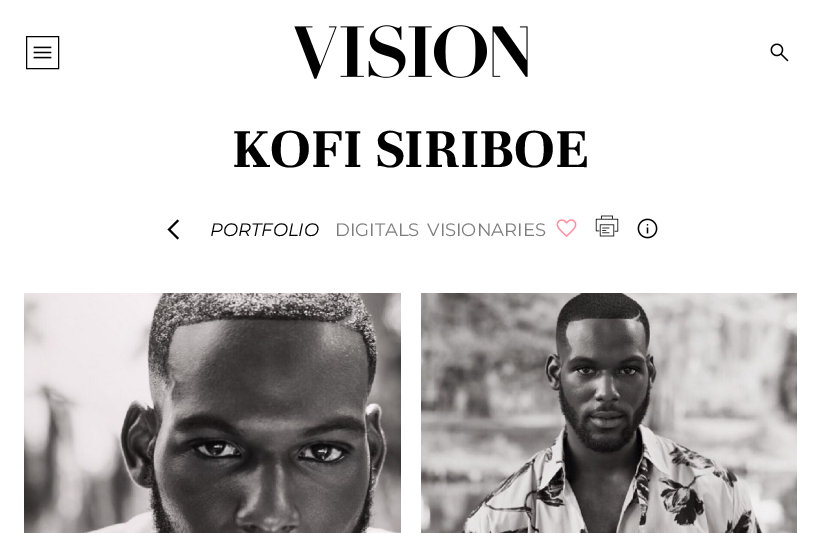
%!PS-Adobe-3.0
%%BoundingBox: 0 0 821 533
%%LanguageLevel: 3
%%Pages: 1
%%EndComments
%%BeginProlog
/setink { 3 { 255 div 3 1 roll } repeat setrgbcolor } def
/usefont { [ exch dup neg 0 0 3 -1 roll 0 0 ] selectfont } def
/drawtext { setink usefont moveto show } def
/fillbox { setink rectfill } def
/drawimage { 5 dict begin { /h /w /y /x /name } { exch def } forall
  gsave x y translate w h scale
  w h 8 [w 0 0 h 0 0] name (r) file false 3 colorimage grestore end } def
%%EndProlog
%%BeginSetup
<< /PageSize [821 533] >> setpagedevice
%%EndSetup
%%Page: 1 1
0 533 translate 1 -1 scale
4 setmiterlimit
0 0 821 533 255 255 255 fillbox
0 0 0 setink
26.5 36.5 32 32 rectstroke
(assets/img1.rgb) 33 46 19 13 drawimage
(assets/img2.rgb) 294 25 234 54 drawimage
(assets/img3.rgb) 770 43 19 19 drawimage
(KOFI SIRIBOE) 232 167 /Unna-Bold 60 0 0 0 drawtext
177.5 239.5 moveto 167.5 229.5 lineto 177.5 219.5 lineto 179 221 lineto 170.5 229.5 lineto 179 238 lineto closepath fill
(PORTFOLIO) 210 236 /Montserrat-Italic 18 0 0 0 drawtext
(DIGITALS) 335 236 /Montserrat-Regular 18 125 125 125 drawtext
(VISIONARIES) 427 236 /Montserrat-Regular 18 125 125 125 drawtext
(assets/img4.rgb) 556 219 21 18 drawimage
(assets/img5.rgb) 595 215 24 22 drawimage
(assets/img6.rgb) 637 218 21 21 drawimage
(assets/img7.rgb) 24 293 377 240 drawimage
(assets/img8.rgb) 421 293 376 240 drawimage
showpage
%%EOF
